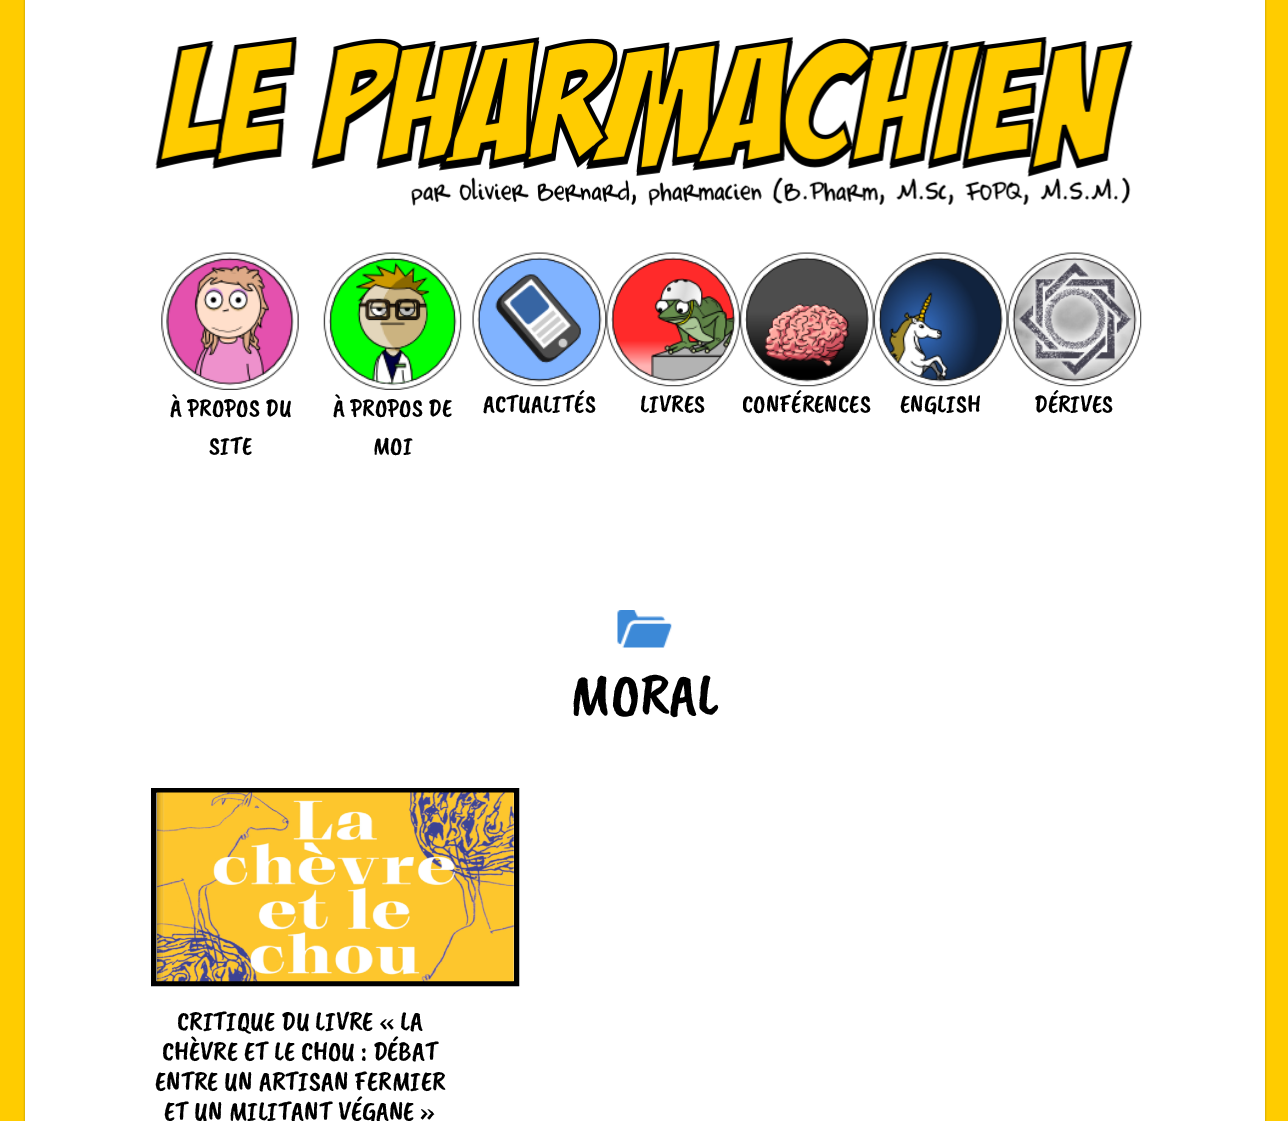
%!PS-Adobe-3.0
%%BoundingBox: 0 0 1288 1121
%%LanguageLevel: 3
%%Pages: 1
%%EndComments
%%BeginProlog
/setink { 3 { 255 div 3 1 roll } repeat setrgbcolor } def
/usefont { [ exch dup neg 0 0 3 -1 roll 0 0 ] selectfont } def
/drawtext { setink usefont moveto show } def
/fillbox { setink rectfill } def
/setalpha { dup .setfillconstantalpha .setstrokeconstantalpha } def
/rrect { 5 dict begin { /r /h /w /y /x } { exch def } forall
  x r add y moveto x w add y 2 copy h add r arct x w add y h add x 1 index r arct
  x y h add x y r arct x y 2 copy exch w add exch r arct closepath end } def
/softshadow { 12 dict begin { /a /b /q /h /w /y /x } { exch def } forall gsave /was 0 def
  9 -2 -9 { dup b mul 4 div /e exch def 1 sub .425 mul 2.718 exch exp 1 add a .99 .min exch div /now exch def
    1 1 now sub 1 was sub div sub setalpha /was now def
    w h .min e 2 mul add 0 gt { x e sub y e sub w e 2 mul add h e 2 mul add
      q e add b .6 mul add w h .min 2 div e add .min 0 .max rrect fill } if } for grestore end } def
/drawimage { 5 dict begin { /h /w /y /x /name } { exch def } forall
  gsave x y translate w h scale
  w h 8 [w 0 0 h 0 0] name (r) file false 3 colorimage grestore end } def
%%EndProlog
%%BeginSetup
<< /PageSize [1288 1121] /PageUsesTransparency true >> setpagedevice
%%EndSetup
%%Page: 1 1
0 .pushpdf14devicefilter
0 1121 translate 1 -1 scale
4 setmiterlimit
0 0 1288 1121 255 204 0 fillbox
0 0 0 setink
24 0 1242 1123 0 0.5 0.12 softshadow
25 0 1240 1121 255 255 255 fillbox
(assets/img1.rgb) 155 36 978 170 drawimage
(assets/img2.rgb) 161 252 138 138 drawimage
(À PROPOS DU) 170 416 /CaveatBrush-Regular 25.5 0 0 0 drawtext
(SITE) 209 454 /CaveatBrush-Regular 25.5 0 0 0 drawtext
(assets/img3.rgb) 323 252 139 138 drawimage
(À PROPOS DE) 333 416 /CaveatBrush-Regular 25.5 0 0 0 drawtext
(MOI) 373 454 /CaveatBrush-Regular 25.5 0 0 0 drawtext
(assets/img4.rgb) 472 252 135 135 drawimage
(ACTUALITÉS) 483 412 /CaveatBrush-Regular 25.5 0 0 0 drawtext
(assets/img5.rgb) 606 252 134 135 drawimage
(LIVRES) 640 412 /CaveatBrush-Regular 25.5 0 0 0 drawtext
(assets/img6.rgb) 740 252 134 135 drawimage
(CONFÉRENCES) 742 412 /CaveatBrush-Regular 25.5 0 0 0 drawtext
(assets/img7.rgb) 873 252 135 135 drawimage
(ENGLISH) 900 412 /CaveatBrush-Regular 25.5 0 0 0 drawtext
(assets/img8.rgb) 1007 252 135 135 drawimage
(DÉRIVES) 1034 412 /CaveatBrush-Regular 25.5 0 0 0 drawtext
(assets/img9.rgb) 617 610 55 38 drawimage
(MORAL) 570 714 /CaveatBrush-Regular 60 0 0 0 drawtext
5 setlinewidth
153.5 790.5 363 193 rectstroke
(assets/img10.rgb) 156 792 358 190 drawimage
(CRITIQUE DU LIVRE « LA) 177 1030 /CaveatBrush-Regular 27.5 0 0 0 drawtext
(CHÈVRE ET LE CHOU : DÉBAT) 162 1060 /CaveatBrush-Regular 27.5 0 0 0 drawtext
(ENTRE UN ARTISAN FERMIER) 155 1090 /CaveatBrush-Regular 27.5 0 0 0 drawtext
(ET UN MILITANT VÉGANE ») 164 1120 /CaveatBrush-Regular 27.5 0 0 0 drawtext
.poppdf14devicefilter showpage
%%EOF
